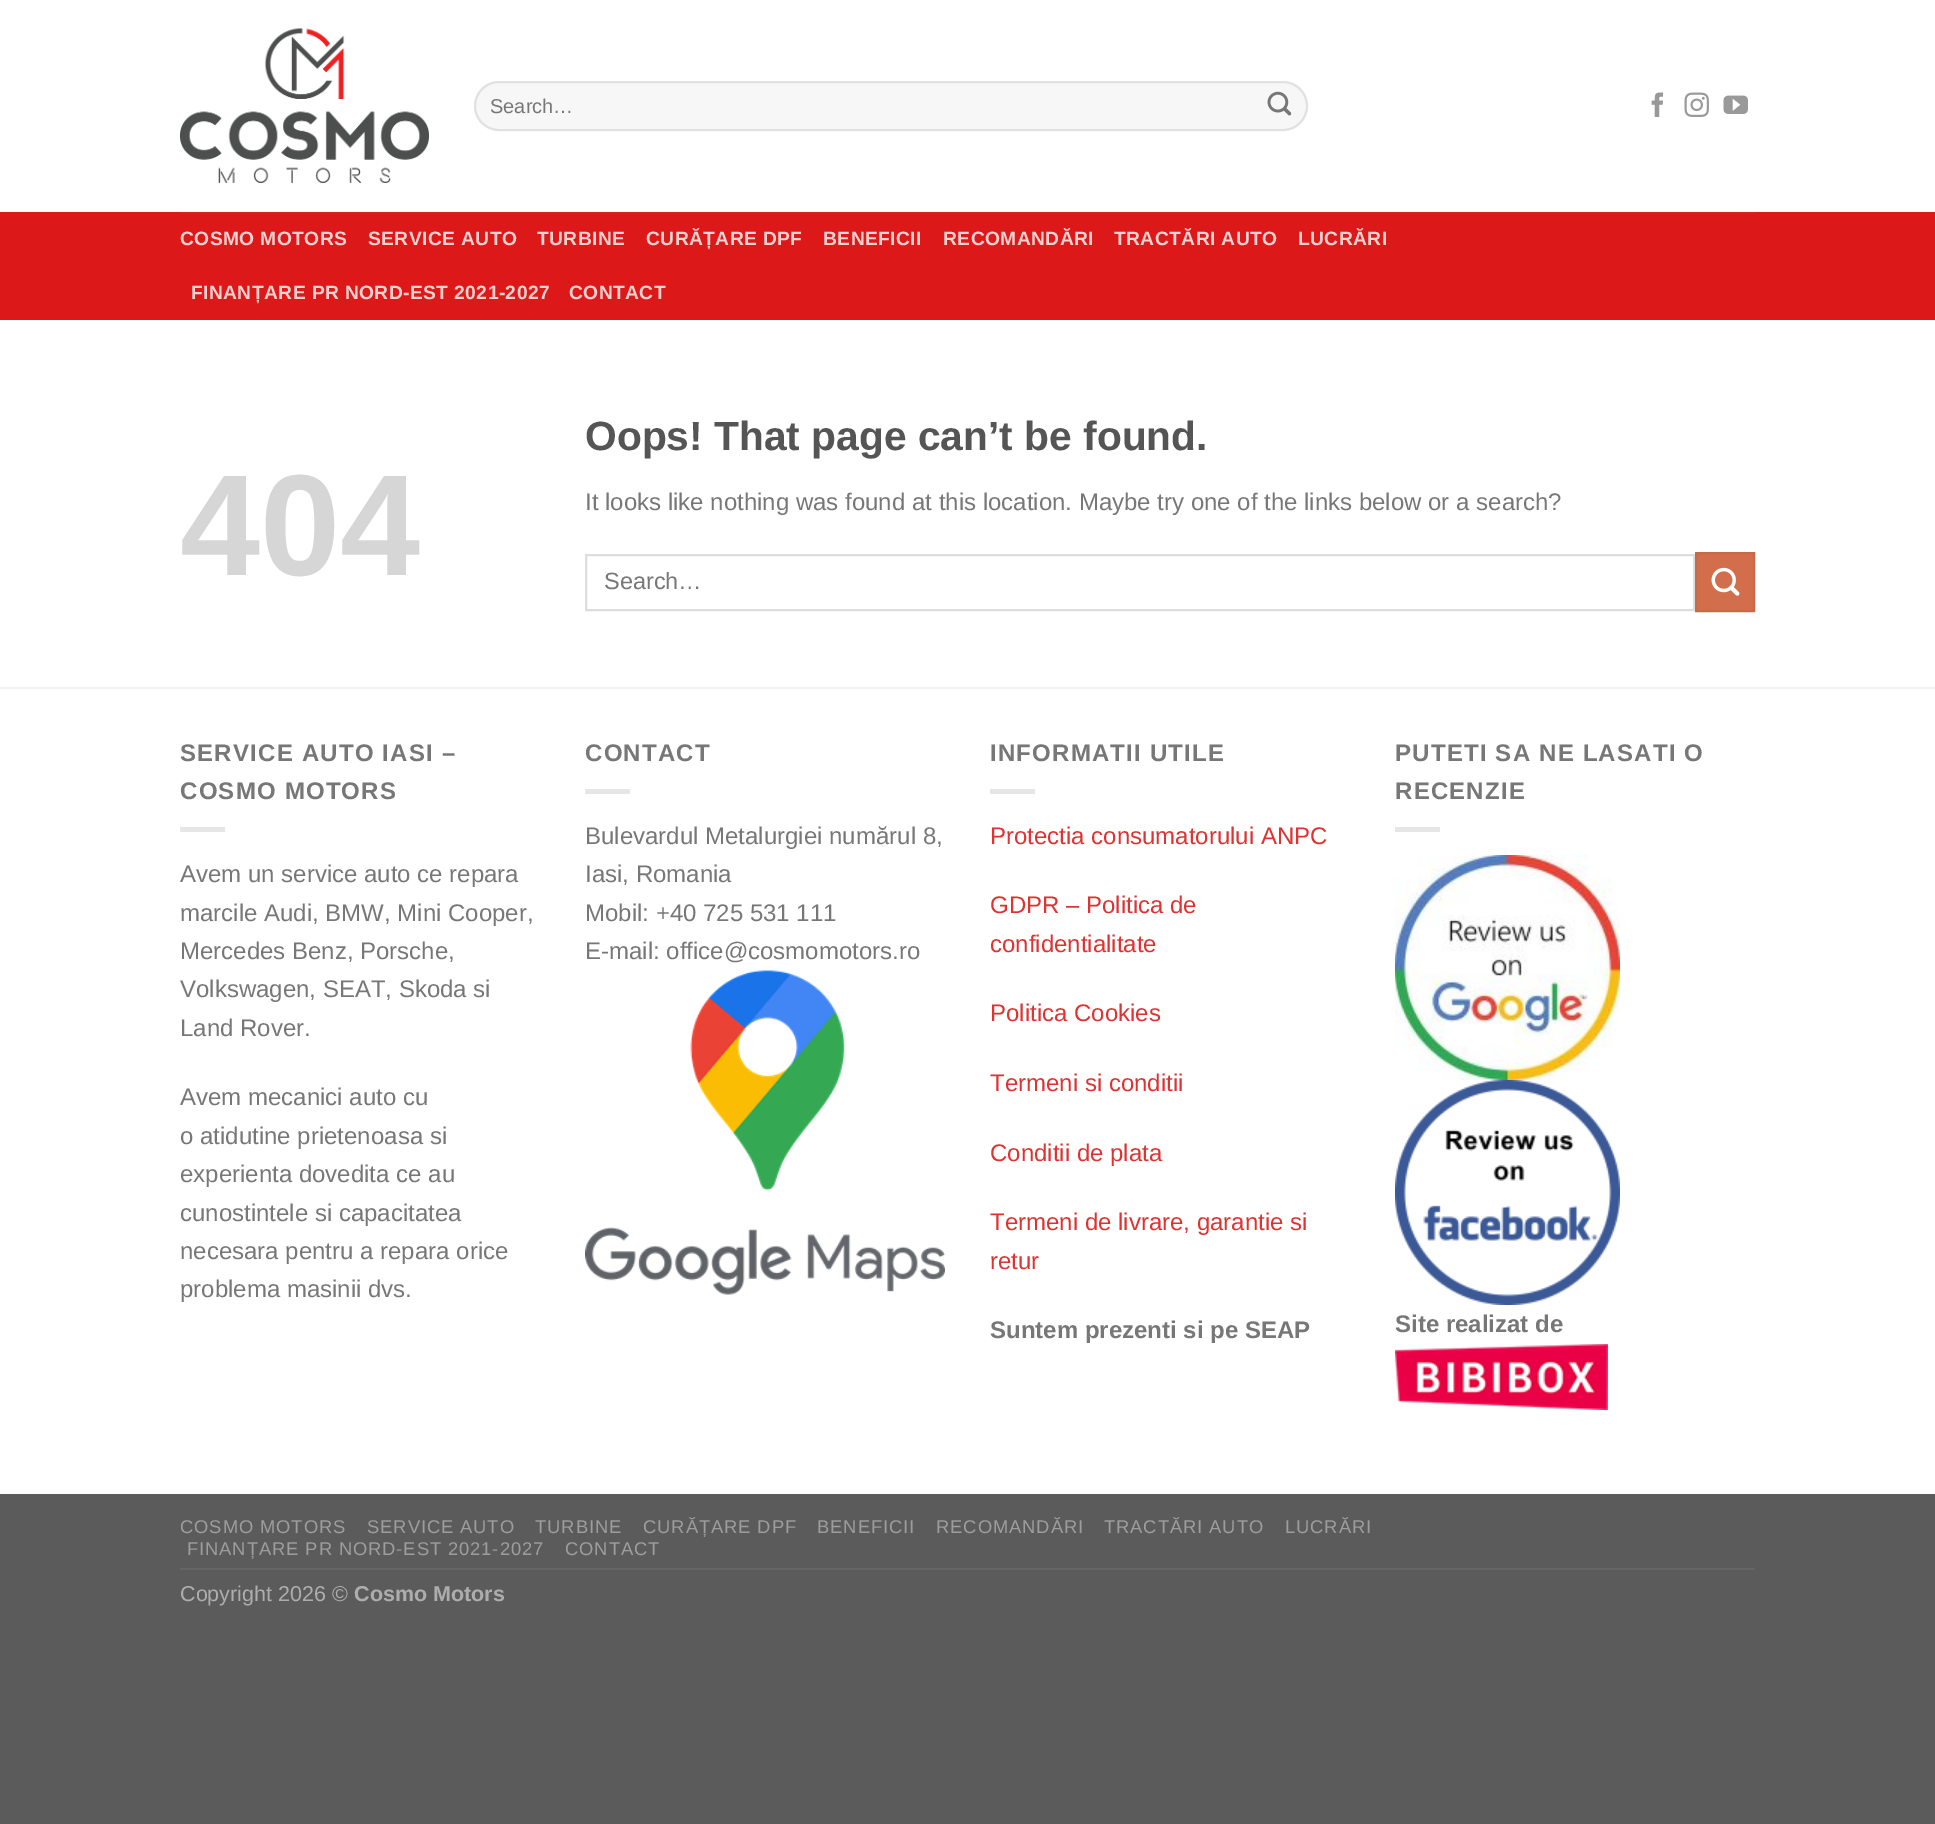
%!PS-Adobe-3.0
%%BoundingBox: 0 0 1935 1824
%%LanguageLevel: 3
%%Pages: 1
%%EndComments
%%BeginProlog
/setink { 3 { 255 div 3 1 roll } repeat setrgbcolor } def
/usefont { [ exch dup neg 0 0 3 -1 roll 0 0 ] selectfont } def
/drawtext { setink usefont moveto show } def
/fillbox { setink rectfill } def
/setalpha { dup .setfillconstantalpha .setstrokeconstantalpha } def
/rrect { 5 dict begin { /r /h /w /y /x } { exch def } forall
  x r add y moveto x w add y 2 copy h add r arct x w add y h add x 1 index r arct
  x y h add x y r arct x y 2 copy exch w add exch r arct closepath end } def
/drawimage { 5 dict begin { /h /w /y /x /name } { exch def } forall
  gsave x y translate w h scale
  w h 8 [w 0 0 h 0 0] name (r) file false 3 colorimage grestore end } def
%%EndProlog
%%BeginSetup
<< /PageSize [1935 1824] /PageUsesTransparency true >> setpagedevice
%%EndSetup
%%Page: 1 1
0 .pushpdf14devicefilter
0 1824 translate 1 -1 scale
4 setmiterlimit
0 0 1935 1824 91 91 91 fillbox
0 0 1935 1494 255 255 255 fillbox
(assets/img1.rgb) 180 28 249 155 drawimage
247 247 247 setink
474 81 834 50 25 rrect fill
0.09 setalpha
0 0 0 setink
2 setlinewidth
475 82 832 48 24 rrect stroke
1 setalpha
(Search…) 490 113 /LiberationSans-Regular 20 119 119 119 drawtext
(assets/img2.rgb) 1267 91 25 25 drawimage
(assets/img3.rgb) 1651 92 13 25 drawimage
(assets/img4.rgb) 1684 92 25 25 drawimage
(assets/img5.rgb) 1723 95 25 19 drawimage
0 212 1935 108 221 24 24 fillbox
180 212 1575 2 211 34 34 fillbox
/LiberationSans-Bold 19.25 usefont
248 209 209 setink
180 245 moveto 0.4 0 (COSMO MOTORS) ashow
368 245 moveto 0.4 0 (SERVICE AUTO) ashow
537 245 moveto 0.4 0 (TURBINE) ashow
646 245 moveto 0.4 0 (CURĂȚARE DPF) ashow
823 245 moveto 0.4 0 (BENEFICII) ashow
943 245 moveto 0.4 0 (RECOMANDĂRI) ashow
1114 245 moveto 0.4 0 (TRACTĂRI AUTO) ashow
1298 245 moveto 0.4 0 (LUCRĂRI) ashow
191 299 moveto 0.4 0 (FINANȚARE PR NORD-EST 2021-2027) ashow
569 299 moveto 0.4 0 (CONTACT) ashow
(404) 180 575 /LiberationSans-Bold 144 214 214 214 drawtext
(Oops! That page can’t be found.) 585 450 /LiberationSans-Bold 40.75 85 85 85 drawtext
(It looks like nothing was found at this location. Maybe try one of the links below or a search?) 585 510 /LiberationSans-Regular 24 119 119 119 drawtext
221 221 221 setink
586 555 1108 55 rectstroke
(Search…) 604 589 /LiberationSans-Regular 23.5 119 119 119 drawtext
210 110 75 setink
1696 553 moveto 1754 553 lineto 1754 611 lineto 1696 611 lineto closepath gsave fill grestore
200 105 71 setink
stroke
(assets/img6.rgb) 1711 567 29 29 drawimage
0 687 1935 2 242 242 242 fillbox
/LiberationSans-Bold 24 usefont
119 119 119 setink
180 761 moveto 1.2 0 (SERVICE AUTO IASI –) ashow
180 799 moveto 1.2 0 (COSMO MOTORS) ashow
180 827 45 5 230 230 230 fillbox
(Avem un service auto ce repara) 180 882 /LiberationSans-Regular 24 119 119 119 drawtext
(marcile Audi, BMW, Mini Cooper,) 180 921 /LiberationSans-Regular 24 119 119 119 drawtext
(Mercedes Benz, Porsche,) 180 959 /LiberationSans-Regular 24 119 119 119 drawtext
(Volkswagen, SEAT, Skoda si) 180 997 /LiberationSans-Regular 24 119 119 119 drawtext
(Land Rover.) 180 1036 /LiberationSans-Regular 24 119 119 119 drawtext
(Avem mecanici auto cu) 180 1105 /LiberationSans-Regular 24 119 119 119 drawtext
(o atidutine prietenoasa si) 180 1144 /LiberationSans-Regular 24 119 119 119 drawtext
(experienta dovedita ce au) 180 1182 /LiberationSans-Regular 24 119 119 119 drawtext
(cunostintele si capacitatea) 180 1221 /LiberationSans-Regular 24 119 119 119 drawtext
(necesara pentru a repara orice) 180 1259 /LiberationSans-Regular 24 119 119 119 drawtext
(problema masinii dvs.) 180 1297 /LiberationSans-Regular 24 119 119 119 drawtext
/LiberationSans-Bold 24 usefont
585 761 moveto 1.2 0 (CONTACT) ashow
585 789 45 5 230 230 230 fillbox
(Bulevardul Metalurgiei numărul 8,) 585 844 /LiberationSans-Regular 24 119 119 119 drawtext
(Iasi, Romania) 585 882 /LiberationSans-Regular 24 119 119 119 drawtext
(Mobil: +40 725 531 111) 585 921 /LiberationSans-Regular 24 119 119 119 drawtext
(E-mail: office@cosmomotors.ro) 585 959 /LiberationSans-Regular 24 119 119 119 drawtext
(assets/img7.rgb) 585 970 360 325 drawimage
/LiberationSans-Bold 24 usefont
990 761 moveto 1.2 0 (INFORMATII UTILE) ashow
990 789 45 5 230 230 230 fillbox
(Protectia consumatorului ANPC) 990 844 /LiberationSans-Regular 24 221 51 51 drawtext
(GDPR – Politica de) 990 913 /LiberationSans-Regular 24 221 51 51 drawtext
(confidentialitate) 990 952 /LiberationSans-Regular 24 221 51 51 drawtext
(Politica Cookies) 990 1021 /LiberationSans-Regular 24 221 51 51 drawtext
(Termeni si conditii) 990 1091 /LiberationSans-Regular 24 221 51 51 drawtext
(Conditii de plata) 990 1161 /LiberationSans-Regular 24 221 51 51 drawtext
(Termeni de livrare, garantie si) 990 1230 /LiberationSans-Regular 24 221 51 51 drawtext
(retur) 990 1269 /LiberationSans-Regular 24 221 51 51 drawtext
(Suntem prezenti si pe SEAP) 990 1338 /LiberationSans-Bold 24 119 119 119 drawtext
1395 761 moveto 1.2 0 (PUTETI SA NE LASATI O) ashow
1395 799 moveto 1.2 0 (RECENZIE) ashow
1395 827 45 5 230 230 230 fillbox
(assets/img8.rgb) 1395 855 225 225 drawimage
(assets/img9.rgb) 1395 1080 225 225 drawimage
(Site realizat de) 1395 1332 /LiberationSans-Bold 24 119 119 119 drawtext
(assets/img10.rgb) 1395 1344 213 66 drawimage
180 1568 1575 2 101 101 101 fillbox
/LiberationSans-Regular 18.4 usefont
157 157 157 setink
180 1533 moveto 0.9 0 (COSMO MOTORS) ashow
367 1533 moveto 0.9 0 (SERVICE AUTO) ashow
535 1533 moveto 0.9 0 (TURBINE) ashow
643 1533 moveto 0.9 0 (CURĂȚARE DPF) ashow
817 1533 moveto 0.9 0 (BENEFICII) ashow
936 1533 moveto 0.9 0 (RECOMANDĂRI) ashow
1104 1533 moveto 0.9 0 (TRACTĂRI AUTO) ashow
1285 1533 moveto 0.9 0 (LUCRĂRI) ashow
187 1555 moveto 0.9 0 (FINANȚARE PR NORD-EST 2021-2027) ashow
565 1555 moveto 0.9 0 (CONTACT) ashow
(Copyright 2026 ©) 180 1601 /LiberationSans-Regular 21.5 173 173 173 drawtext
(Cosmo Motors) 354 1601 /LiberationSans-Bold 21.5 173 173 173 drawtext
.poppdf14devicefilter showpage
%%EOF
